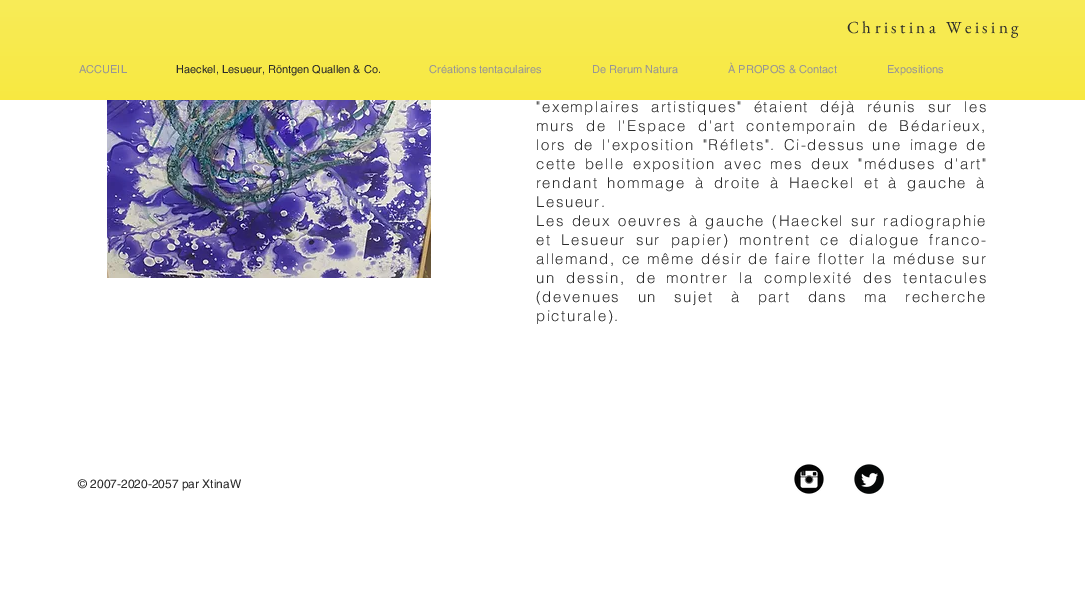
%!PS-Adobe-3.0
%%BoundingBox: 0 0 1085 602
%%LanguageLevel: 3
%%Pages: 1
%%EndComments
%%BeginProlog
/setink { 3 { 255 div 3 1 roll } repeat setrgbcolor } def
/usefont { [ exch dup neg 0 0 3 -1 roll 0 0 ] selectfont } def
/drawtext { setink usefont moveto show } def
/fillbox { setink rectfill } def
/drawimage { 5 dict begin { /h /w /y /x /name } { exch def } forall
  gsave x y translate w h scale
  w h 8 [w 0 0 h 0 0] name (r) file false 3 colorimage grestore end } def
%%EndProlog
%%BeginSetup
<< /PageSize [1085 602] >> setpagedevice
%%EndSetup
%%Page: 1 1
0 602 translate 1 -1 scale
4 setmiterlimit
0 0 1085 602 255 255 255 fillbox
0 0 1085 100 245 228 29 fillbox
(assets/img1.rgb) 0 0 1085 100 drawimage
/EBGaramond-Regular 17 usefont
43 43 43 setink
847 33 moveto 3.4 0 (Christina Weising) ashow
(ACCUEIL) 79 73 /helvetica-Regular 11 151 149 149 drawtext
(Haeckel, Lesueur, Röntgen Quallen & Co.) 176 73 /helvetica-Regular 11 43 43 43 drawtext
(Créations tentaculaires) 429 73 /helvetica-Regular 11 151 149 149 drawtext
(De Rerum Natura) 592 73 /helvetica-Regular 11 151 149 149 drawtext
(À PROPOS & Contact) 728 73 /helvetica-Regular 11 151 149 149 drawtext
(Expositions) 887 73 /helvetica-Regular 11 151 149 149 drawtext
(assets/img2.rgb) 107 100 324 178 drawimage
/helvetica-Light 15 usefont
43 43 43 setink
536 112 moveto 5.5 0 32 1.5 0 ("exemplaires artistiques" étaient déjà réunis sur les) awidthshow
536 131 moveto 5.25 0 32 1.5 0 (murs de l'Espace d'art contemporain de Bédarieux,) awidthshow
536 150 moveto 2 0 32 1.5 0 (lors de l'exposition "Réflets". Ci-dessus une image de) awidthshow
536 169 moveto 2.25 0 32 1.5 0 (cette belle exposition avec mes deux "méduses d'art") awidthshow
536 188 moveto 3.5 0 32 1.5 0 (rendant hommage à droite à Haeckel et à gauche à) awidthshow
536 207 moveto 1.5 0 (Lesueur.) ashow
536 226 moveto 1.25 0 32 1.5 0 (Les deux oeuvres à gauche \(Haeckel sur radiographie) awidthshow
536 245 moveto 4 0 32 1.5 0 (et Lesueur sur papier\) montrent ce dialogue franco-) awidthshow
536 264 moveto 0.5 0 32 1.5 0 (allemand, ce même désir de faire flotter la méduse sur) awidthshow
536 283 moveto 5 0 32 1.5 0 (un dessin, de) awidthshow
666 283 moveto 5 0 32 1.5 0 (montrer la complexité des tentacules) awidthshow
536 302 moveto 11.5 0 32 1.5 0 (\(devenues un sujet à part dans ma recherche) awidthshow
536 321 moveto 1.5 0 (picturale\).) ashow
(© 2007-2020-2057 par XtinaW) 78 488 /helvetica-Regular 12 43 43 43 drawtext
(assets/img3.rgb) 794 464 30 30 drawimage
(assets/img4.rgb) 854 464 30 30 drawimage
showpage
%%EOF
